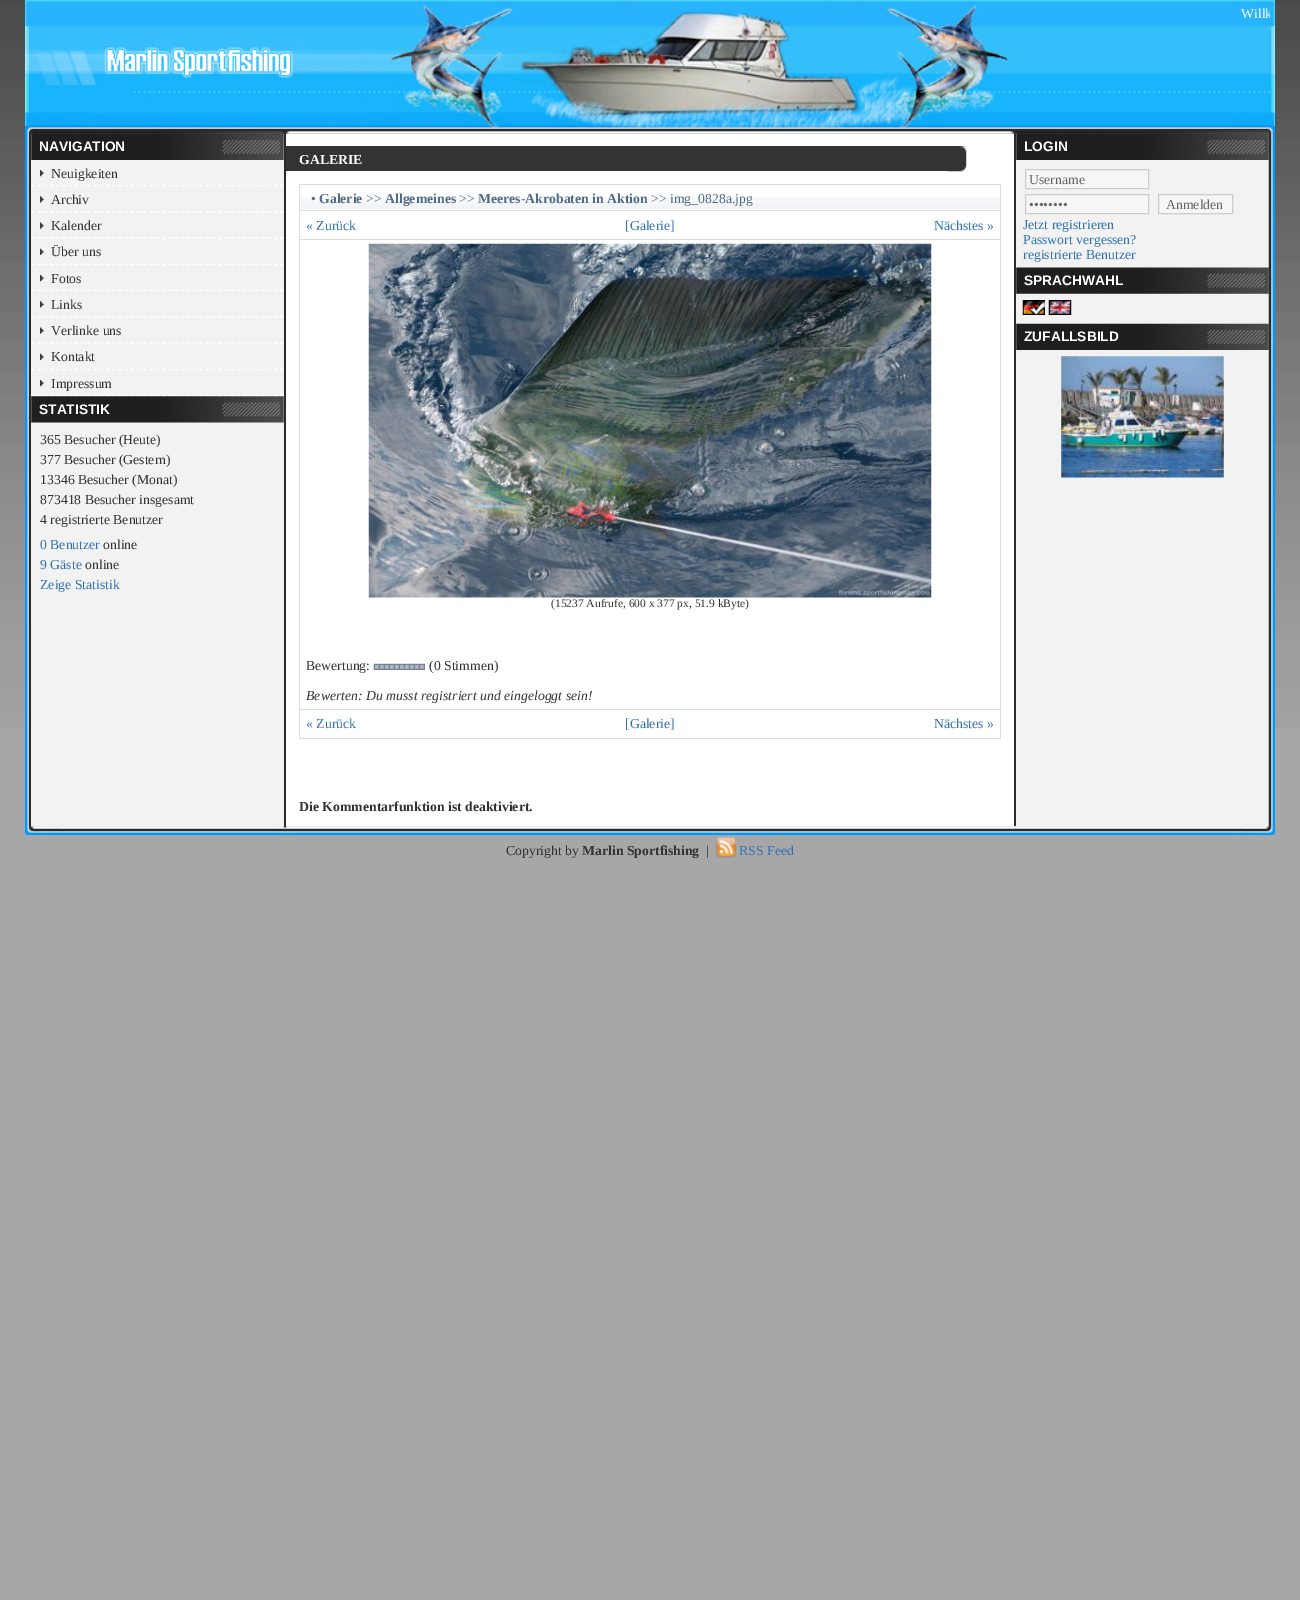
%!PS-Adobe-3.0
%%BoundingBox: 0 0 1300 1600
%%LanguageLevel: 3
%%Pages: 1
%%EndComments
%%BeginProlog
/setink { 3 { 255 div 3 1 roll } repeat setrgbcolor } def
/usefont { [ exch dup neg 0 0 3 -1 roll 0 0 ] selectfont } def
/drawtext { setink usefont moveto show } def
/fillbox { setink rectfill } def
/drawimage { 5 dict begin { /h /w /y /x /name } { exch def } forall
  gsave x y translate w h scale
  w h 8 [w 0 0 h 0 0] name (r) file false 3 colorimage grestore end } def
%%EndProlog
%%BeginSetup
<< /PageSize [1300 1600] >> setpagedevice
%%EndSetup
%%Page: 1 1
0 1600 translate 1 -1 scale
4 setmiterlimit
0 0 1300 1600 167 167 167 fillbox
(assets/img1.rgb) 0 0 1300 728 drawimage
(assets/img2.rgb) 25 0 1250 128 drawimage
gsave
30 5 1240 15 rectclip
(Willk) 1241 18 /LiberationSerif-Regular 13.75 255 255 255 drawtext
grestore
(assets/img4.rgb) 25 133 7 694 drawimage
31 134 253 692 242 242 242 fillbox
(assets/img5.rgb) 31 133 253 27 drawimage
1016 134 253 692 242 242 242 fillbox
(assets/img16.rgb) 1016 133 253 27 drawimage
(assets/img17.rgb) 1016 267 253 27 drawimage
(assets/img21.rgb) 1016 323 253 27 drawimage
(assets/img23.rgb) 1268 133 7 694 drawimage
(assets/img3.rgb) 25 127 1250 7 drawimage
(NAVIGATION) 39 151 /LiberationSans-Bold 13.75 255 255 255 drawtext
(assets/img6.rgb) 40 170 4 7 drawimage
1.2 setlinewidth
[3.75 2.48] 0 setdash
31 185.5 moveto 284 185.5 lineto stroke
(Neuigkeiten) 51 178 /LiberationSerif-Regular 13.75 51 51 51 drawtext
(assets/img7.rgb) 40 196 4 7 drawimage
255 255 255 setink
31 212 moveto 284 212 lineto stroke
(Archiv) 51 204 /LiberationSerif-Regular 13.75 51 51 51 drawtext
(assets/img8.rgb) 40 222 4 7 drawimage
255 255 255 setink
31 238 moveto 284 238 lineto stroke
(Kalender) 51 230 /LiberationSerif-Regular 13.75 51 51 51 drawtext
(assets/img9.rgb) 40 248 4 7 drawimage
255 255 255 setink
31 264.5 moveto 284 264.5 lineto stroke
(Über uns) 51 256 /LiberationSerif-Regular 13.75 51 51 51 drawtext
(assets/img6.rgb) 40 275 4 7 drawimage
255 255 255 setink
31 290.5 moveto 284 290.5 lineto stroke
(Fotos) 51 283 /LiberationSerif-Regular 13.75 51 51 51 drawtext
(assets/img7.rgb) 40 301 4 7 drawimage
255 255 255 setink
31 317 moveto 284 317 lineto stroke
(Links) 51 309 /LiberationSerif-Regular 13.75 51 51 51 drawtext
(assets/img8.rgb) 40 327 4 7 drawimage
255 255 255 setink
31 343 moveto 284 343 lineto stroke
(Verlinke uns) 51 335 /LiberationSerif-Regular 13.75 51 51 51 drawtext
(assets/img9.rgb) 40 353 4 7 drawimage
255 255 255 setink
31 369.5 moveto 284 369.5 lineto stroke
(Kontakt) 51 361 /LiberationSerif-Regular 13.75 51 51 51 drawtext
(assets/img6.rgb) 40 380 4 7 drawimage
255 255 255 setink
31 395.5 moveto 284 395.5 lineto stroke
(Impressum) 51 388 /LiberationSerif-Regular 13.75 51 51 51 drawtext
(assets/img10.rgb) 31 396 253 27 drawimage
(STATISTIK) 39 414 /LiberationSans-Bold 13.75 255 255 255 drawtext
(365 Besucher \(Heute\)) 40 444 /LiberationSerif-Regular 13.75 51 51 51 drawtext
(377 Besucher \(Gestern\)) 40 464 /LiberationSerif-Regular 13.75 51 51 51 drawtext
(13346 Besucher \(Monat\)) 40 484 /LiberationSerif-Regular 13.75 51 51 51 drawtext
(873418 Besucher insgesamt) 40 504 /LiberationSerif-Regular 13.75 51 51 51 drawtext
(4 registrierte Benutzer) 40 524 /LiberationSerif-Regular 13.75 51 51 51 drawtext
(0 Benutzer) 40 549 /LiberationSerif-Regular 13.75 49 114 179 drawtext
(online) 103 549 /LiberationSerif-Regular 13.75 51 51 51 drawtext
(9 Gäste) 40 569 /LiberationSerif-Regular 13.75 49 114 179 drawtext
(online) 85 569 /LiberationSerif-Regular 13.75 51 51 51 drawtext
(Zeige Statistik) 40 589 /LiberationSerif-Regular 13.75 49 114 179 drawtext
284 134 2 692 42 42 42 fillbox
286 134 728 692 255 255 255 fillbox
286 146 680 25 51 51 51 fillbox
(assets/img11.rgb) 947 146 20 26 drawimage
(GALERIE) 299 164 /LiberationSerif-Bold 13.75 255 255 255 drawtext
299 184 702 555 221 221 221 fillbox
(assets/img12.rgb) 300 185 700 25 drawimage
(•) 311 203 /LiberationSerif-Regular 13.75 78 108 134 drawtext
(Galerie) 319 203 /LiberationSerif-Bold 13.75 78 108 134 drawtext
(>>) 366 203 /LiberationSerif-Regular 13.75 78 108 134 drawtext
(Allgemeines) 385 203 /LiberationSerif-Bold 13.75 78 108 134 drawtext
(>>) 459 203 /LiberationSerif-Regular 13.75 78 108 134 drawtext
(Meeres-Akrobaten in Aktion) 478 203 /LiberationSerif-Bold 13.75 78 108 134 drawtext
(>> img_0828a.jpg) 651 203 /LiberationSerif-Regular 13.75 78 108 134 drawtext
300 211 700 28 255 255 255 fillbox
(« Zurück) 306 230 /LiberationSerif-Regular 13.75 49 114 179 drawtext
([Galerie]) 625 230 /LiberationSerif-Regular 13.75 49 114 179 drawtext
(Nächstes ») 934 230 /LiberationSerif-Regular 13.75 49 114 179 drawtext
300 240 700 469 255 255 255 fillbox
(assets/img13.rgb) 368 243 564 355 drawimage
(\(15237 Aufrufe, 600 x 377 px, 51.9 kByte\)) 551 607 /LiberationSerif-Regular 11.5 51 51 51 drawtext
(Bewertung:) 306 670 /LiberationSerif-Regular 13.75 51 51 51 drawtext
(assets/img14.rgb) 373 663 2 7 drawimage
(assets/img15.rgb) 375 663 5 7 drawimage
(assets/img15.rgb) 380 663 5 7 drawimage
(assets/img15.rgb) 385 663 5 7 drawimage
(assets/img15.rgb) 390 663 5 7 drawimage
(assets/img15.rgb) 395 663 5 7 drawimage
(assets/img15.rgb) 400 663 5 7 drawimage
(assets/img15.rgb) 405 663 5 7 drawimage
(assets/img15.rgb) 410 663 5 7 drawimage
(assets/img15.rgb) 415 663 5 7 drawimage
(assets/img15.rgb) 420 663 5 7 drawimage
(\(0 Stimmen\)) 429 670 /LiberationSerif-Regular 13.75 51 51 51 drawtext
(Bewerten: Du musst registriert und eingeloggt sein!) 306 700 /LiberationSerif-Italic 13.75 51 51 51 drawtext
300 710 700 28 255 255 255 fillbox
(« Zurück) 306 728 /LiberationSerif-Regular 13.75 49 114 179 drawtext
([Galerie]) 625 728 /LiberationSerif-Regular 13.75 49 114 179 drawtext
(Nächstes ») 934 728 /LiberationSerif-Regular 13.75 49 114 179 drawtext
(Die Kommentarfunktion ist deaktiviert.) 299 811 /LiberationSerif-Bold 13.75 51 51 51 drawtext
1014 134 2 692 42 42 42 fillbox
(LOGIN) 1024 151 /LiberationSans-Bold 13.75 255 255 255 drawtext
246 246 246 setink
1025.5 169.5 moveto 1148.5 169.5 lineto 1148.5 188.5 lineto 1025.5 188.5 lineto closepath gsave fill grestore
204 204 204 setink
1 setlinewidth
[] 0 setdash
stroke
(Username) 1029 184 /LiberationSerif-Regular 13.75 102 102 102 drawtext
246 246 246 setink
1025.5 194.5 moveto 1148.5 194.5 lineto 1148.5 213.5 lineto 1025.5 213.5 lineto closepath gsave fill grestore
204 204 204 setink
stroke
(••••••••) 1029 209 /LiberationSerif-Regular 13.75 102 102 102 drawtext
246 246 246 setink
1158.5 194.5 moveto 1232.5 194.5 lineto 1232.5 213.5 lineto 1158.5 213.5 lineto closepath gsave fill grestore
204 204 204 setink
stroke
(Anmelden) 1166 209 /LiberationSerif-Regular 13.75 102 102 102 drawtext
(Jetzt registrieren) 1023 229 /LiberationSerif-Regular 13.75 49 114 179 drawtext
(Passwort vergessen?) 1023 244 /LiberationSerif-Regular 13.75 49 114 179 drawtext
(registrierte Benutzer) 1023 259 /LiberationSerif-Regular 13.75 49 114 179 drawtext
(SPRACHWAHL) 1024 285 /LiberationSans-Bold 13.75 255 255 255 drawtext
(assets/img18.rgb) 1022 300 23 15 drawimage
(assets/img19.rgb) 1048 300 24 15 drawimage
(assets/img20.rgb) 1029 301 16 13 drawimage
(ZUFALLSBILD) 1024 341 /LiberationSans-Bold 13.75 255 255 255 drawtext
(assets/img22.rgb) 1061 356 163 122 drawimage
(assets/img24.rgb) 25 826 1250 9 drawimage
(Copyright by) 506 855 /LiberationSerif-Regular 13.75 51 51 51 drawtext
(Marlin Sportfishing) 582 855 /LiberationSerif-Bold 13.75 51 51 51 drawtext
(|) 706 855 /LiberationSerif-Regular 13.75 51 51 51 drawtext
(assets/img25.rgb) 716 837 21 21 drawimage
(RSS Feed) 739 855 /LiberationSerif-Regular 13.75 49 114 179 drawtext
showpage
%%EOF
